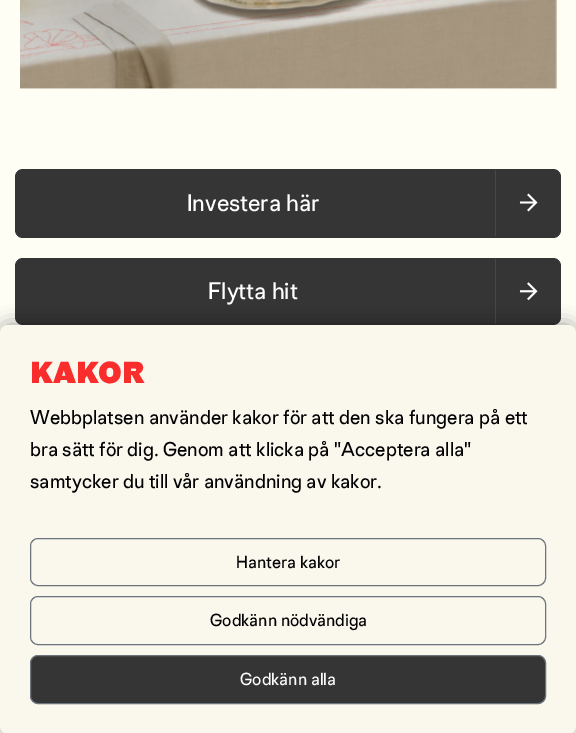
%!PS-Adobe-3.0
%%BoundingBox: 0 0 576 733
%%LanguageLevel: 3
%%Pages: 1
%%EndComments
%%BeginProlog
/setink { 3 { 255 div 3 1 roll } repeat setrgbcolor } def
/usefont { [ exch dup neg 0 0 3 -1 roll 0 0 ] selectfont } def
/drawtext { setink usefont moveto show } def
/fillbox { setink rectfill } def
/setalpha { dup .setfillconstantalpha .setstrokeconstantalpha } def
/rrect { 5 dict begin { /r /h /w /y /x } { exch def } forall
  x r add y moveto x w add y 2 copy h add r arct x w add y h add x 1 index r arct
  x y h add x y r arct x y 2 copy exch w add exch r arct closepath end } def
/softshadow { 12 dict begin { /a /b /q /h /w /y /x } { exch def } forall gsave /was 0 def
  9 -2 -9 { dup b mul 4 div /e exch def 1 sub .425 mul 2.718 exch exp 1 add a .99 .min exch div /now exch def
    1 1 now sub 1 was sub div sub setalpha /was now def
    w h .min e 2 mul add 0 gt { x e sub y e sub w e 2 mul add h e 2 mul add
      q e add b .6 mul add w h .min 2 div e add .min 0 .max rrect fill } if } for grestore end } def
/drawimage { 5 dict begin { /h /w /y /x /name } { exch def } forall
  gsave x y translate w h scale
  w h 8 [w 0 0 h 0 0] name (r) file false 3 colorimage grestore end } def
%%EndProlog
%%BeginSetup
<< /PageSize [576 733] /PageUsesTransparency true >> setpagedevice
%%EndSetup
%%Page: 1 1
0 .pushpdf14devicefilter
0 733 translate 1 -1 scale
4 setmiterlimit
0 0 576 733 255 254 245 fillbox
(assets/img1.rgb) 20 0 537 89 drawimage
53 53 53 setink
15 169 546 69 8 rrect fill
(Investera här) 187 211 /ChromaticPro-Regular 24 255 255 255 drawtext
(assets/img2.rgb) 519 193 19 19 drawimage
495 170 1 66 72 72 71 fillbox
53 53 53 setink
15 258 546 67 8 rrect fill
(Flytta hit) 208 299 /ChromaticPro-Regular 24 255 255 255 drawtext
(assets/img3.rgb) 519 282 19 19 drawimage
495 259 1 65 72 72 71 fillbox
0 0 0 setink
0 325 576 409 8 9.5 0.4 softshadow
250 247 237 setink
0 325 576 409 8 rrect fill
(KAKOR) 30 383 /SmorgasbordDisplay-ExtraBold 30 250 45 45 drawtext
(Webbplatsen använder kakor för att den ska fungera på ett) 30 424 /ChromaticPro-Regular 20 0 0 0 drawtext
(bra sätt för dig. Genom att klicka på "Acceptera alla") 30 456 /ChromaticPro-Regular 20 0 0 0 drawtext
(samtycker du till vår användning av kakor.) 30 488 /ChromaticPro-Regular 20 0 0 0 drawtext
108 117 125 setink
30.5 538.5 515 47 7.5 rrect stroke
(Hantera kakor) 236 568 /ChromaticPro-Regular 17.5 0 0 0 drawtext
108 117 125 setink
30.5 596.5 515 48 7.5 rrect stroke
(Godkänn nödvändiga) 210 626 /ChromaticPro-Regular 17.5 0 0 0 drawtext
53 53 53 setink
30.5 655.5 515 48 7.5 rrect gsave fill grestore
108 117 125 setink
stroke
(Godkänn alla) 240 685 /ChromaticPro-Regular 17.5 255 255 255 drawtext
.poppdf14devicefilter showpage
%%EOF
